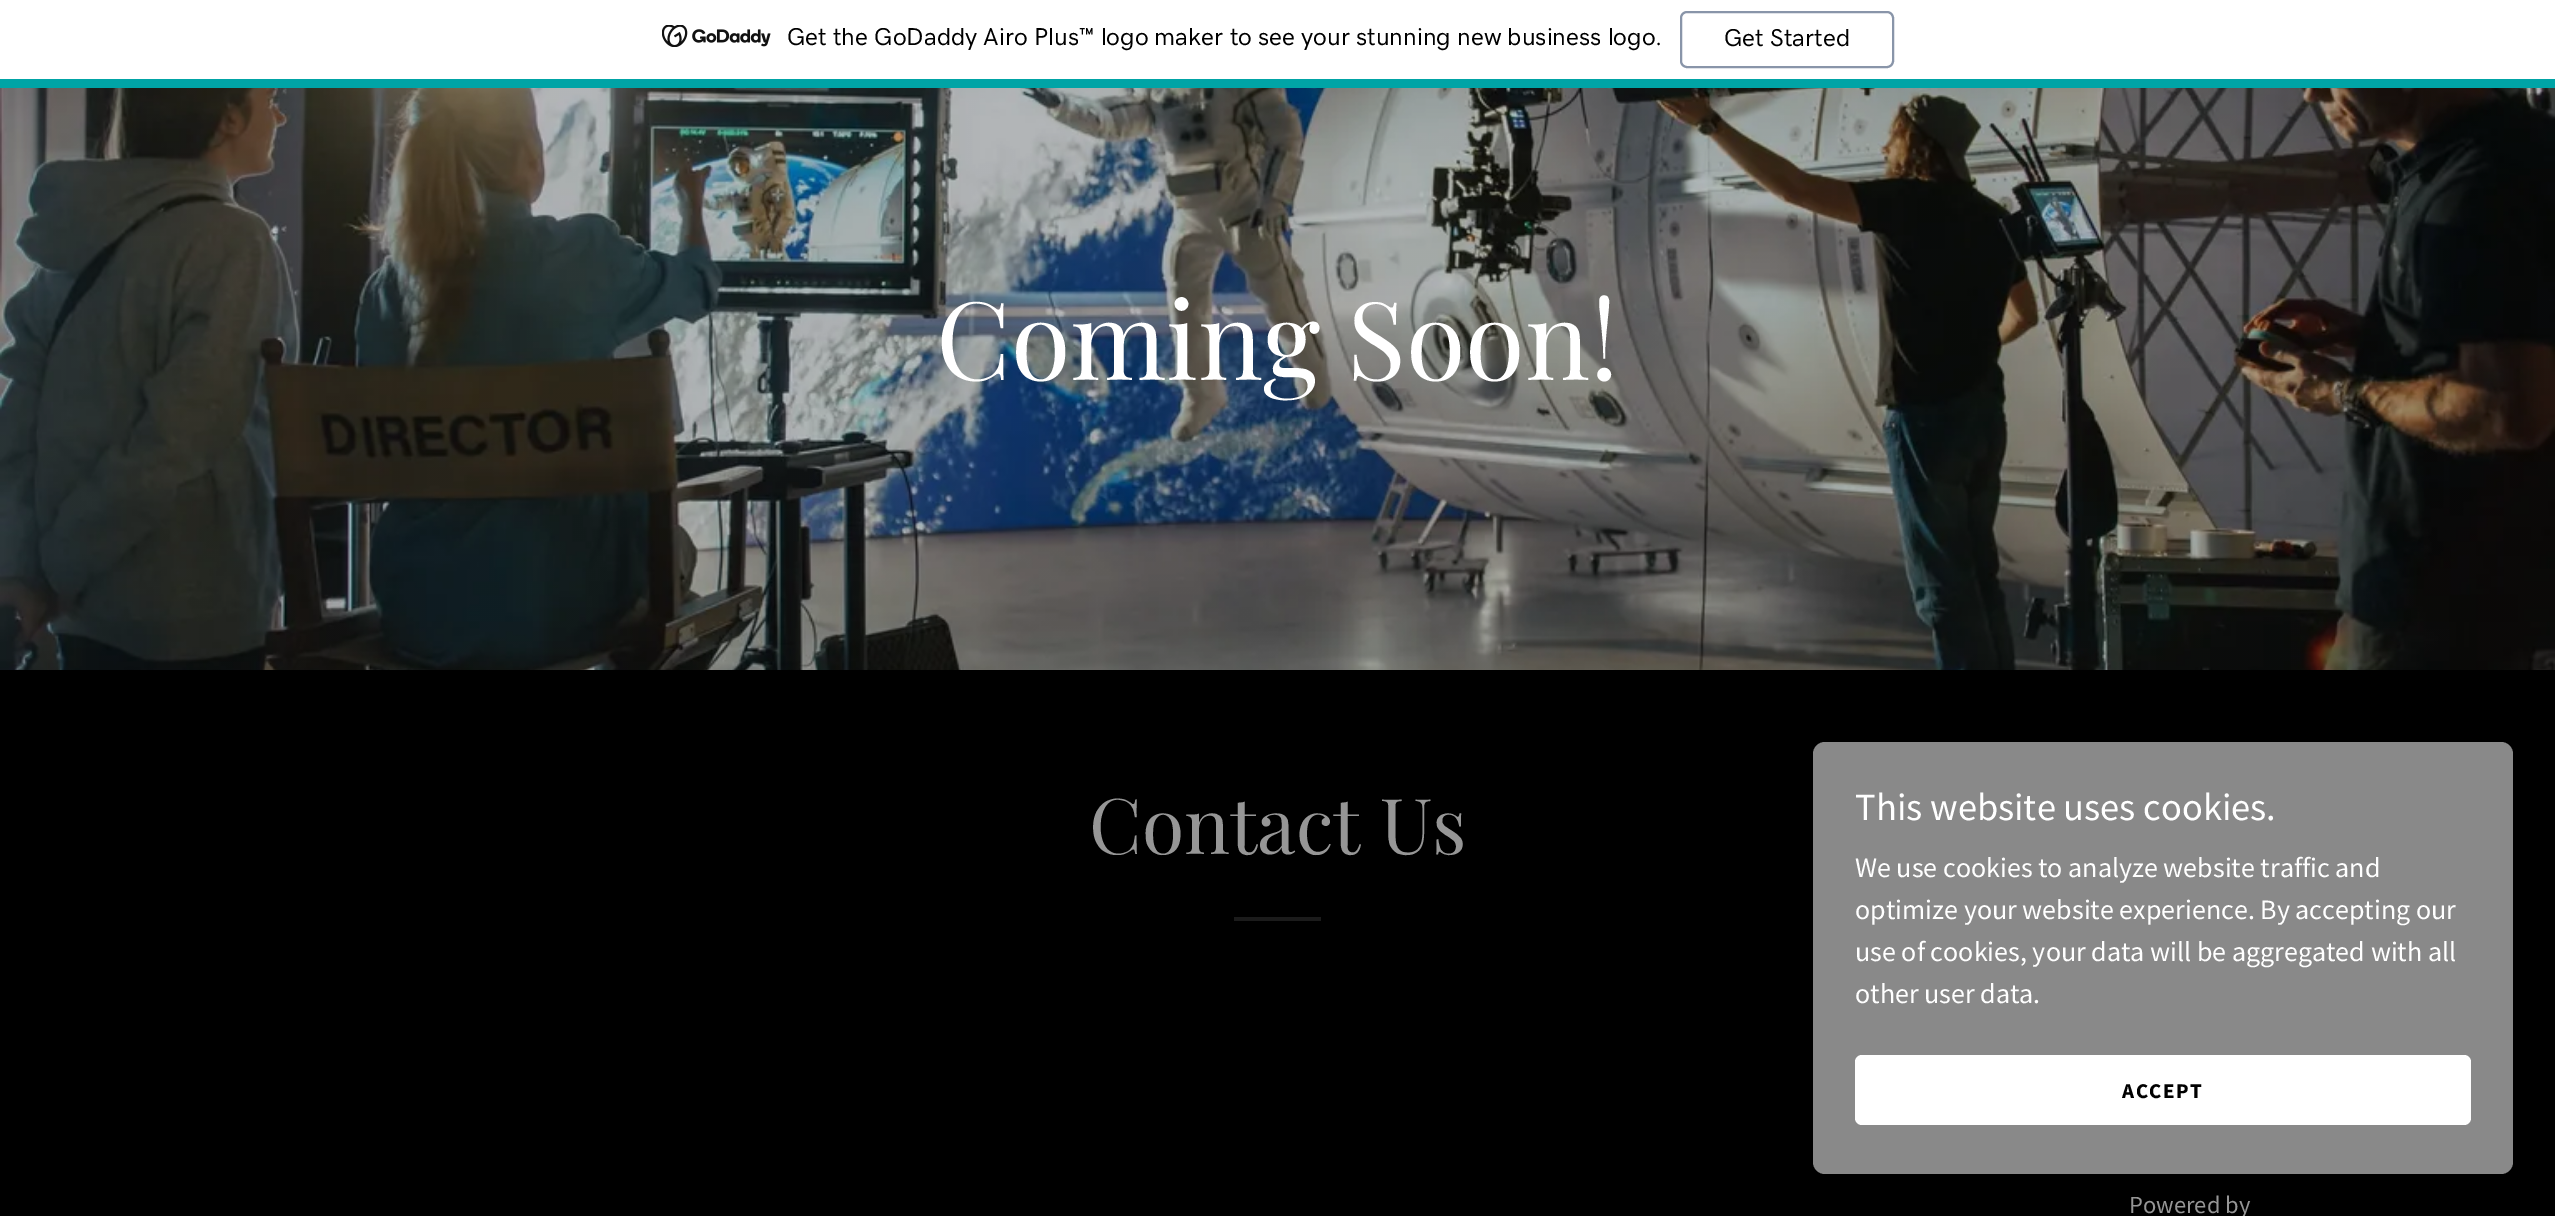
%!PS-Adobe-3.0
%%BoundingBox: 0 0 2555 1216
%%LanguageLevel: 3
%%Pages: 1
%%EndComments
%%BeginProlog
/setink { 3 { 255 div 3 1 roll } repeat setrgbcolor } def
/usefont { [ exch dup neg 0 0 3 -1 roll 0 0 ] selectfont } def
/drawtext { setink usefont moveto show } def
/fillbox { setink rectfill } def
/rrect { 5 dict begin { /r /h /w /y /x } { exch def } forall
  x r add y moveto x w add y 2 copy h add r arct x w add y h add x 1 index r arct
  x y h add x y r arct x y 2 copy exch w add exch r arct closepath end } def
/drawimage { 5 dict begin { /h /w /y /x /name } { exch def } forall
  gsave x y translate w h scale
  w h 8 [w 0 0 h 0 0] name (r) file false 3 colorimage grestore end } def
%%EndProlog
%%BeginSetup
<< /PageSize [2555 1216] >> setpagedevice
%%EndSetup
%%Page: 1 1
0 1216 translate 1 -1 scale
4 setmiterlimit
0 0 2555 1216 0 0 0 fillbox
0 0 2555 79 255 255 255 fillbox
0 79 2555 9 0 164 166 fillbox
(assets/img1.rgb) 662 25 109 22 drawimage
(Get the GoDaddy Airo Plus™ logo maker to see your stunning new business logo.) 787 45 /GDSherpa-Medium 24.5 0 0 0 drawtext
137 149 169 setink
2 setlinewidth
1681 12 212 55 6 rrect stroke
(Get Started) 1724 46 /GDSherpa-Medium 24.5 0 0 0 drawtext
(assets/img2.rgb) 0 88 2555 582 drawimage
(Coming Soon!) 936 380 /PlayfairDisplay-Regular 108.5 255 255 255 drawtext
(Contact Us) 1089 854 /PlayfairDisplay-Regular 77 150 150 150 drawtext
1234 917 87 4 27 27 27 fillbox
137 137 137 setink
1813 742 700 432 12 rrect fill
(This website uses cookies.) 1855 820 /SourceSansPro-Regular 38.5 255 255 255 drawtext
(We use cookies to analyze website traffic and) 1855 877 /SourceSansPro-Regular 28 255 255 255 drawtext
(optimize your website experience. By accepting our) 1855 919 /SourceSansPro-Regular 28 255 255 255 drawtext
(use of cookies, your data will be aggregated with all) 1855 961 /SourceSansPro-Regular 28 255 255 255 drawtext
(other user data.) 1855 1003 /SourceSansPro-Regular 28 255 255 255 drawtext
1855 1055 616 70 7 rrect fill
/SourceSansPro-Bold 21 usefont
0 0 0 setink
2122 1098 moveto 1.5 0 (ACCEPT) ashow
(Powered by) 2129 1213 /SourceSansPro-Regular 24.5 150 150 150 drawtext
showpage
%%EOF
